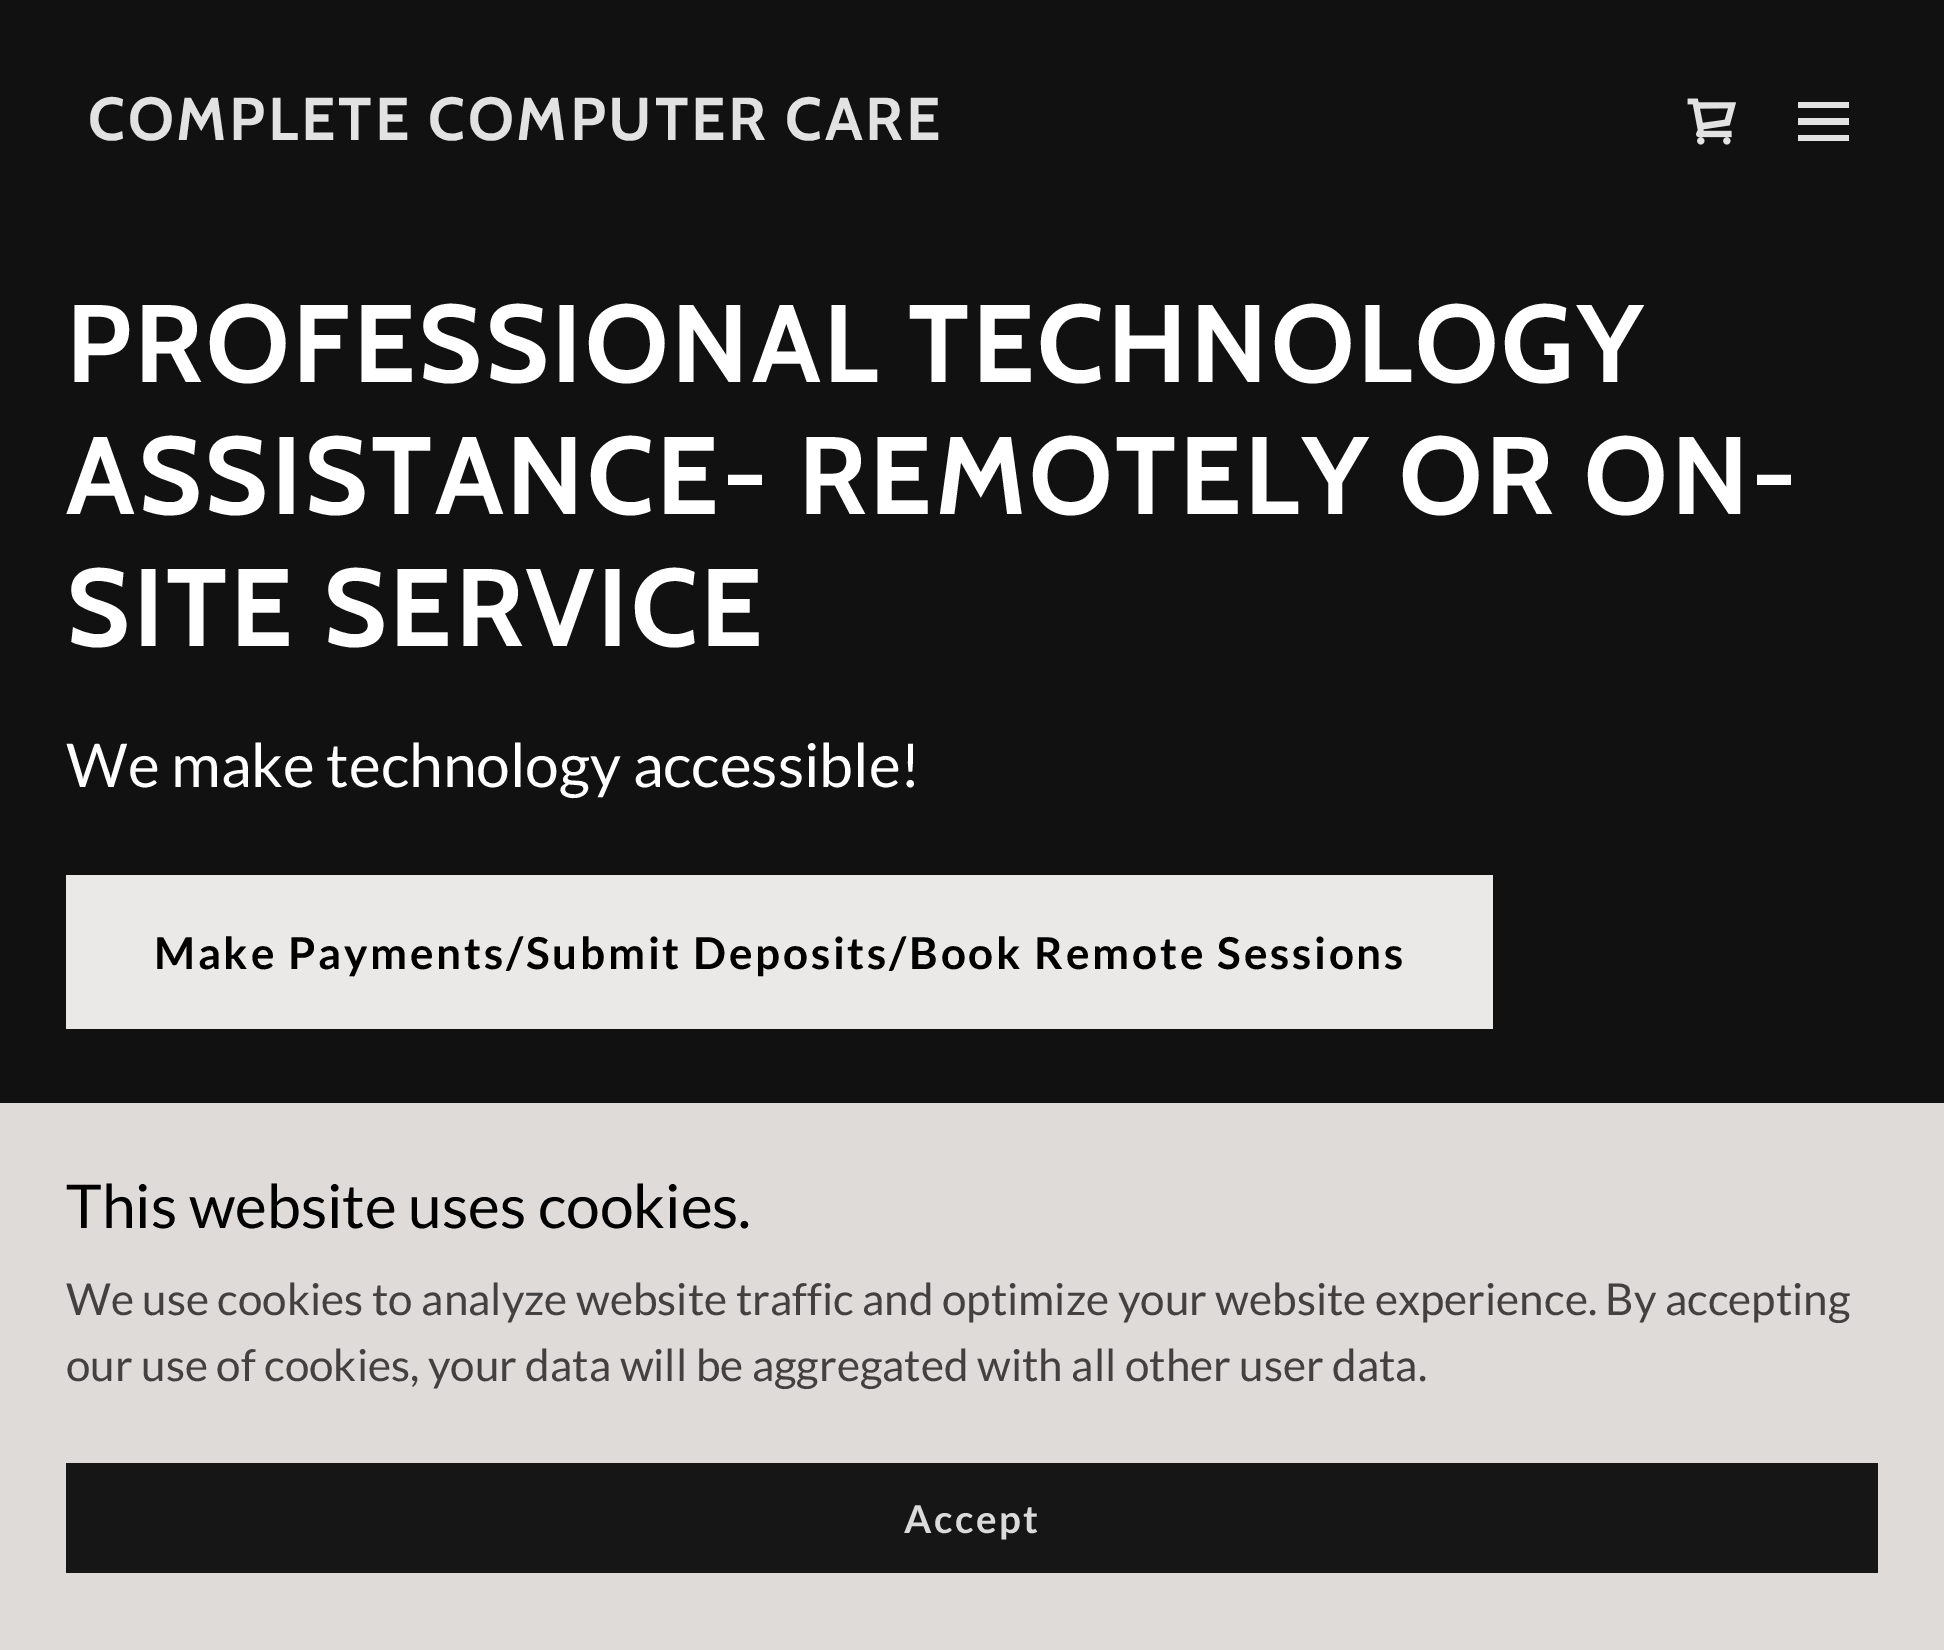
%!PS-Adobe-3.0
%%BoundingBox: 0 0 1944 1650
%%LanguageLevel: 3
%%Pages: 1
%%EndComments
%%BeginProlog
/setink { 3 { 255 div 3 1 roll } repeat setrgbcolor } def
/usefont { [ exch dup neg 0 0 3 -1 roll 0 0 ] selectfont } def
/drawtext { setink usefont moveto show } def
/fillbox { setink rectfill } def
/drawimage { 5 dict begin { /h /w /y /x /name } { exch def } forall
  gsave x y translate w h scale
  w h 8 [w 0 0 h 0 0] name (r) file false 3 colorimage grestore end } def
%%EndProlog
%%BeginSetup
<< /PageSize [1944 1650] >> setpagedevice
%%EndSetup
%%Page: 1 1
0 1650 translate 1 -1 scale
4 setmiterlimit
0 0 1944 1650 17 17 17 fillbox
/Cabin-Bold 60.5 usefont
226 226 226 setink
88 140 moveto 2.75 0 (COMPLETE COMPUTER CARE) ashow
(assets/img1.rgb) 1687 98 50 47 drawimage
1798 102 51 6 226 226 226 fillbox
1798 118 51 7 226 226 226 fillbox
1798 135 51 6 226 226 226 fillbox
/Cabin-Bold 110 usefont
255 255 255 setink
66 382 moveto 2.75 0 (PROFESSIONAL TECHNOLOGY) ashow
66 514 moveto 2.75 0 (ASSISTANCE- REMOTELY OR ON-) ashow
66 646 moveto 2.75 0 (SITE SERVICE) ashow
(We make technology accessible!) 66 787 /Lato-Regular 60.5 255 255 255 drawtext
66 875 1427 154 235 233 232 fillbox
/Lato-Bold 44 usefont
0 0 0 setink
154 969 moveto 2.77 0 (Make Payments/Submit Deposits/Book Remote Sessions) ashow
0 1103 1944 547 222 219 217 fillbox
(This website uses cookies.) 66 1228 /Lato-Regular 60.5 0 0 0 drawtext
(We use cookies to analyze website traffic and optimize your website experience. By accepting) 66 1315 /Lato-Regular 44 66 65 64 drawtext
(our use of cookies, your data will be aggregated with all other user data.) 66 1381 /Lato-Regular 44 66 65 64 drawtext
66 1463 1812 110 22 22 22 fillbox
/Lato-Bold 38.5 usefont
219 219 219 setink
904 1533 moveto 2.5 0 (Accept) ashow
showpage
%%EOF
